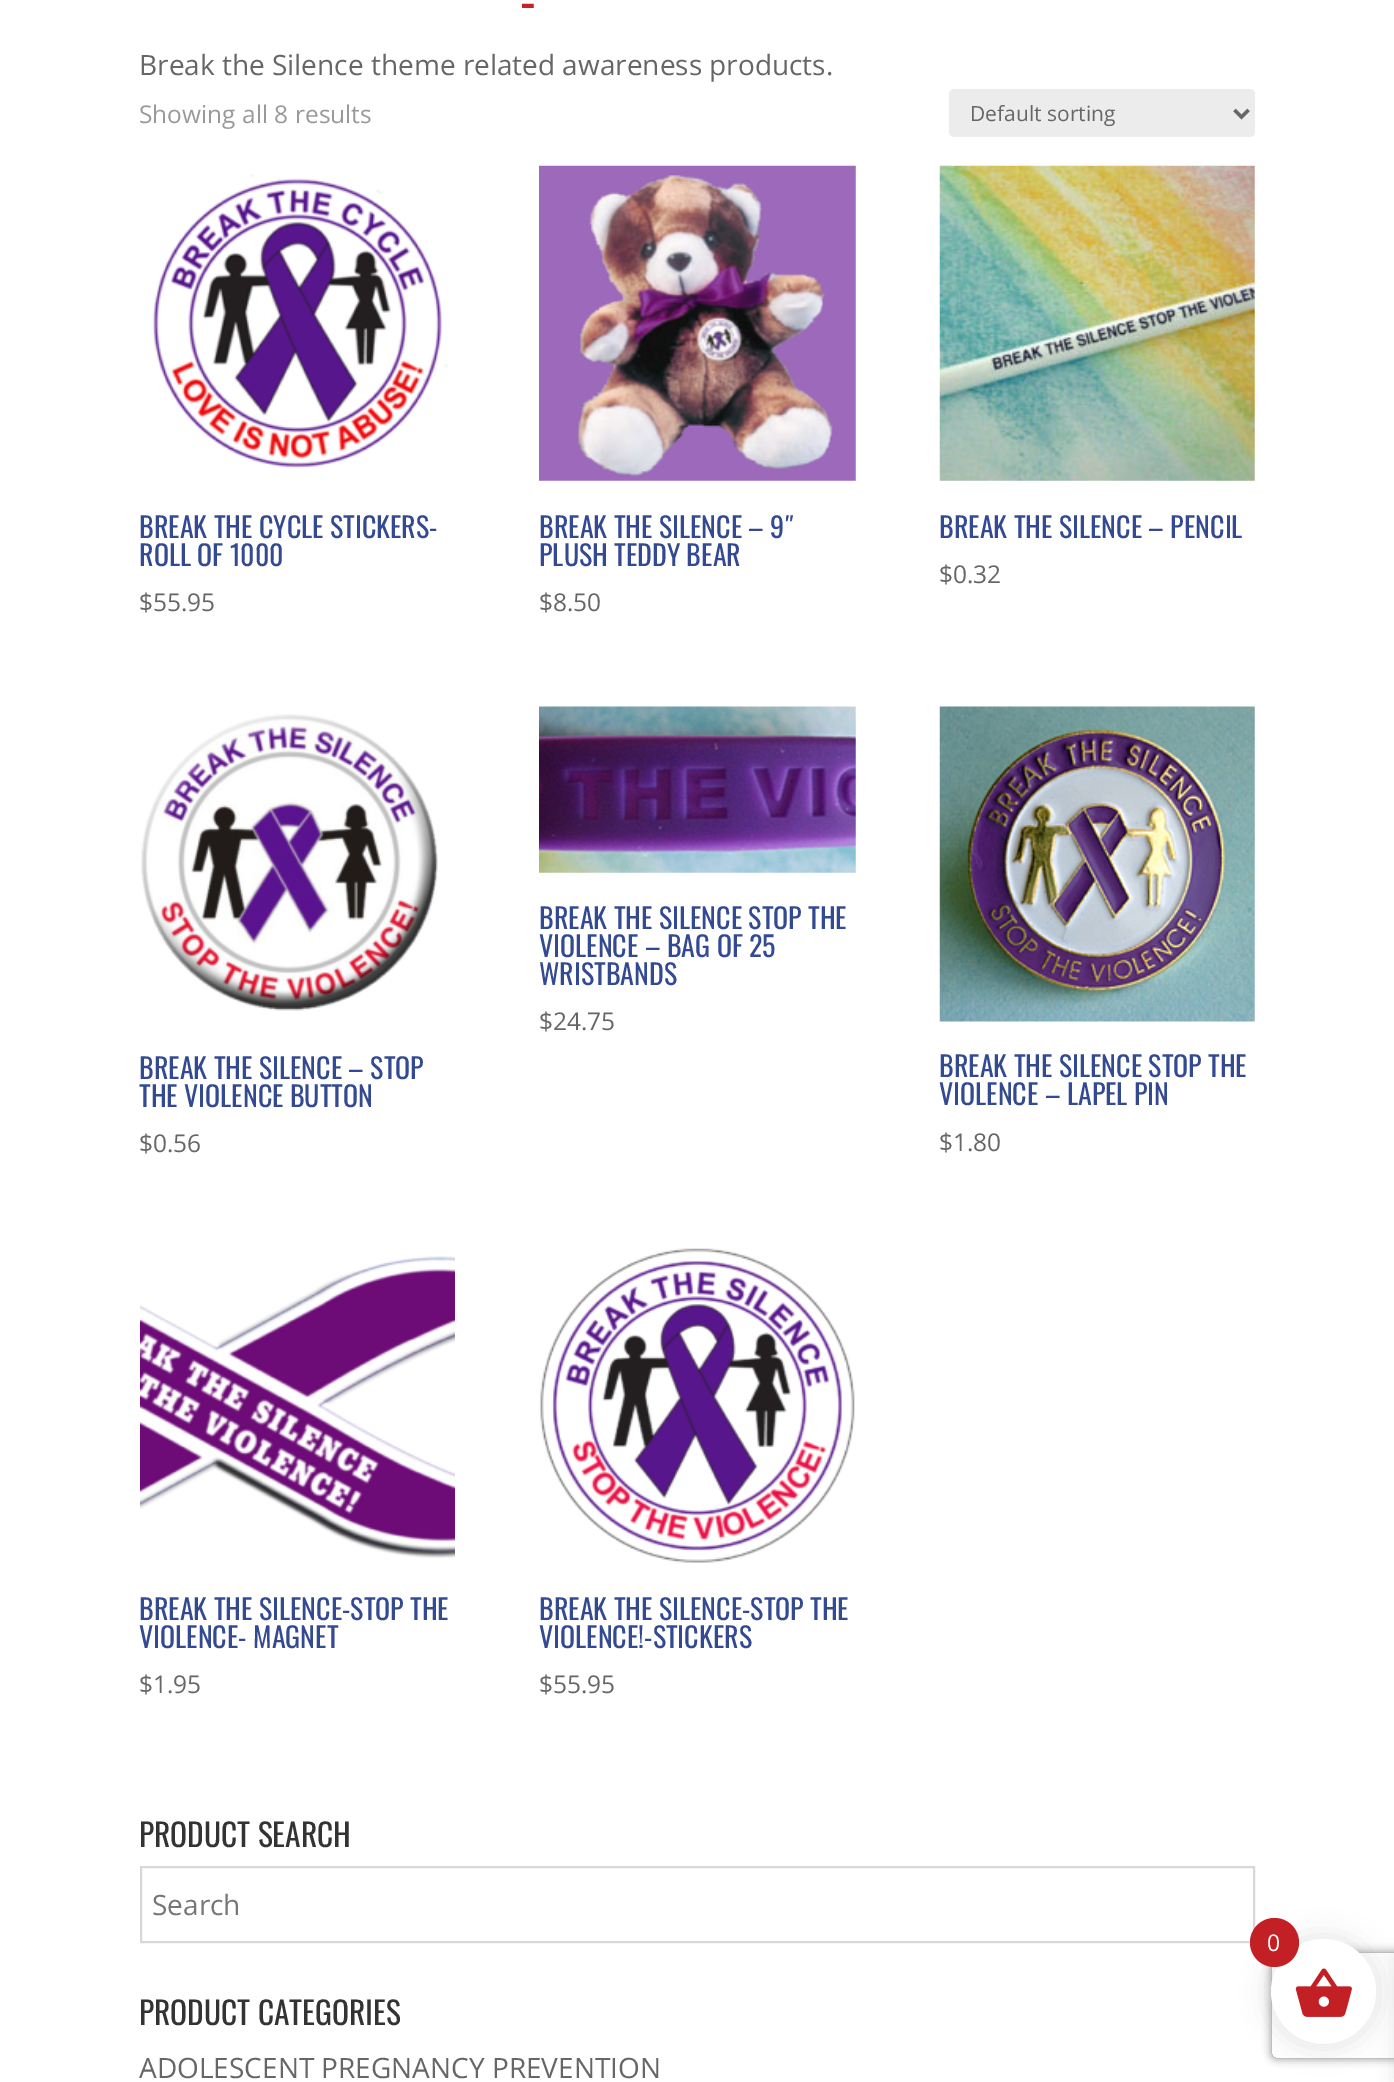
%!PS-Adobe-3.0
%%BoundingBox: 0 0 1394 2082
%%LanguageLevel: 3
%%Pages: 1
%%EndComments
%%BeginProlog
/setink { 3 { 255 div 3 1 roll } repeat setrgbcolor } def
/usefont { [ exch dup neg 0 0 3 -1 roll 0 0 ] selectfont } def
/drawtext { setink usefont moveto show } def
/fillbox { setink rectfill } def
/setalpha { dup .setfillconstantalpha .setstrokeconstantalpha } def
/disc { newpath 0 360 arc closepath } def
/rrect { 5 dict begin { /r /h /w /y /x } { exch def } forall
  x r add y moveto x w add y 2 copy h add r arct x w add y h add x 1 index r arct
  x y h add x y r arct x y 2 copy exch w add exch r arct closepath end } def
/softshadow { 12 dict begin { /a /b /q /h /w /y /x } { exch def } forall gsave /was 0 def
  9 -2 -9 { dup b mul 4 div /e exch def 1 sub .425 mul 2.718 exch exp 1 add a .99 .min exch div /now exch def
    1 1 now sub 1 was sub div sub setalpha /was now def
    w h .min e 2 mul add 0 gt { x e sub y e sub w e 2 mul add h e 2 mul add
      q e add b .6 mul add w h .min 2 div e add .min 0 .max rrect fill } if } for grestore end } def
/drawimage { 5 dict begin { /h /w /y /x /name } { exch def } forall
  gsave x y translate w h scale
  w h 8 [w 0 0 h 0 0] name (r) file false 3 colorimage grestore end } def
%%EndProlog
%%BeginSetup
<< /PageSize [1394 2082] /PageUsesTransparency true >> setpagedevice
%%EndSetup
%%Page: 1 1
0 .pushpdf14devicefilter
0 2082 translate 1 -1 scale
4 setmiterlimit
0 0 1394 2082 255 255 255 fillbox
(-) 520 21 /Oswald-Regular 52 198 33 39 drawtext
(Break the Silence theme related awareness products.) 139 75 /OpenSans-Regular 28 102 102 102 drawtext
(Showing all 8 results) 139 123 /OpenSans-Regular 24.5 153 153 153 drawtext
236 236 236 setink
949 89 306 48 5 rrect fill
102 102 102 setink
3.5 setlinewidth
1234.5 110 moveto 1241.5 117 lineto 1248.5 110 lineto stroke
(Default sorting) 970 121 /OpenSans-Regular 21 102 102 102 drawtext
(assets/img1.rgb) 152 174 296 295 drawimage
(BREAK THE CYCLE STICKERS-) 139 538 /Oswald-Regular 28 51 74 147 drawtext
(ROLL OF 1000) 139 566 /Oswald-Regular 28 51 74 147 drawtext
($55.95) 139 611 /OpenSans-Regular 24.5 102 102 102 drawtext
(assets/img2.rgb) 539 165 317 316 drawimage
(BREAK THE SILENCE – 9″) 539 538 /Oswald-Regular 28 51 74 147 drawtext
(PLUSH TEDDY BEAR) 539 566 /Oswald-Regular 28 51 74 147 drawtext
($8.50) 539 611 /OpenSans-Regular 24.5 102 102 102 drawtext
(assets/img3.rgb) 939 165 316 316 drawimage
(BREAK THE SILENCE – PENCIL) 939 538 /Oswald-Regular 28 51 74 147 drawtext
($0.32) 939 583 /OpenSans-Regular 24.5 102 102 102 drawtext
(assets/img4.rgb) 539 706 317 167 drawimage
(BREAK THE SILENCE STOP THE) 539 929 /Oswald-Regular 28 51 74 147 drawtext
(VIOLENCE – BAG OF 25) 539 957 /Oswald-Regular 28 51 74 147 drawtext
(WRISTBANDS) 539 985 /Oswald-Regular 28 51 74 147 drawtext
($24.75) 539 1030 /OpenSans-Regular 24.5 102 102 102 drawtext
(assets/img5.rgb) 141 714 297 297 drawimage
(BREAK THE SILENCE – STOP) 139 1079 /Oswald-Regular 28 51 74 147 drawtext
(THE VIOLENCE BUTTON) 139 1107 /Oswald-Regular 28 51 74 147 drawtext
($0.56) 139 1152 /OpenSans-Regular 24.5 102 102 102 drawtext
(assets/img6.rgb) 939 706 316 316 drawimage
(BREAK THE SILENCE STOP THE) 939 1077 /Oswald-Regular 28 51 74 147 drawtext
(VIOLENCE – LAPEL PIN) 939 1105 /Oswald-Regular 28 51 74 147 drawtext
($1.80) 939 1151 /OpenSans-Regular 24.5 102 102 102 drawtext
(assets/img7.rgb) 140 1256 315 302 drawimage
(BREAK THE SILENCE-STOP THE) 139 1620 /Oswald-Regular 28 51 74 147 drawtext
(VIOLENCE- MAGNET) 139 1648 /Oswald-Regular 28 51 74 147 drawtext
($1.95) 139 1693 /OpenSans-Regular 24.5 102 102 102 drawtext
(assets/img8.rgb) 540 1248 315 315 drawimage
(BREAK THE SILENCE-STOP THE) 539 1620 /Oswald-Regular 28 51 74 147 drawtext
(VIOLENCE!-STICKERS) 539 1648 /Oswald-Regular 28 51 74 147 drawtext
($55.95) 539 1693 /OpenSans-Regular 24.5 102 102 102 drawtext
(PRODUCT SEARCH) 139 1847 /Oswald-Regular 31.5 51 51 51 drawtext
216 216 216 setink
2 setlinewidth
141 1867 1113 75 rectstroke
(Search) 152 1915 /OpenSans-Regular 28 117 117 117 drawtext
(PRODUCT CATEGORIES) 139 2025 /Oswald-Regular 31.5 51 51 51 drawtext
(ADOLESCENT PREGNANCY PREVENTION) 139 2078 /OpenSans-Regular 28 102 102 102 drawtext
0 0 0 setink
1267 1936 112 112 56 13 0.1 softshadow
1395 1957 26 124 0 9 0.1 softshadow
gsave
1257 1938 moveto 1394 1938 lineto 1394 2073 lineto 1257 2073 lineto closepath 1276 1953 moveto 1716 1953 lineto 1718 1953 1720 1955 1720 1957 curveto 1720 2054 lineto 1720 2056 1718 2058 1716 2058 curveto 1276 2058 lineto 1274 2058 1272 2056 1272 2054 curveto 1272 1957 lineto 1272 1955 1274 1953 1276 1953 curveto closepath eoclip newpath
128 128 128 setink
1272 1953 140 105 4 4.5 1 softshadow
grestore
255 255 255 setink
1323.5 1991.5 52.5 disc fill
195 32 37 setink
1274.5 1942.5 24.5 disc fill
(0) 1267 1951 /OpenSans-Regular 23 255 255 255 drawtext
(assets/img9.rgb) 1295 1968 57 49 drawimage
.poppdf14devicefilter showpage
%%EOF
